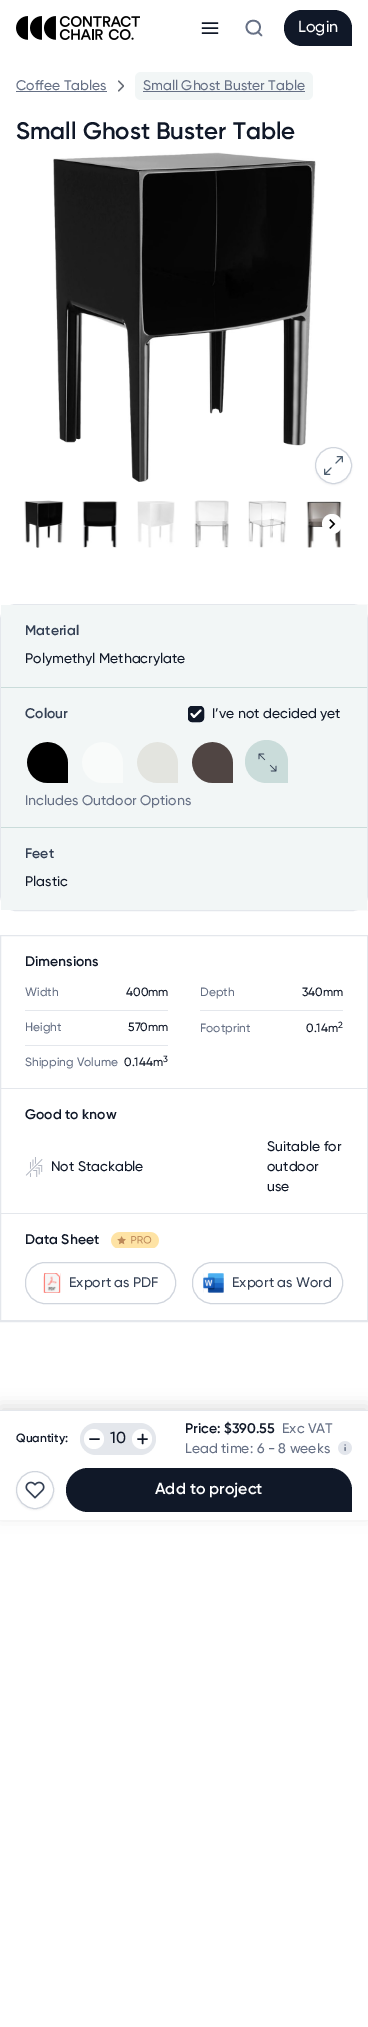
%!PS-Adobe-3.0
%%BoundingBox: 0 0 368 2027
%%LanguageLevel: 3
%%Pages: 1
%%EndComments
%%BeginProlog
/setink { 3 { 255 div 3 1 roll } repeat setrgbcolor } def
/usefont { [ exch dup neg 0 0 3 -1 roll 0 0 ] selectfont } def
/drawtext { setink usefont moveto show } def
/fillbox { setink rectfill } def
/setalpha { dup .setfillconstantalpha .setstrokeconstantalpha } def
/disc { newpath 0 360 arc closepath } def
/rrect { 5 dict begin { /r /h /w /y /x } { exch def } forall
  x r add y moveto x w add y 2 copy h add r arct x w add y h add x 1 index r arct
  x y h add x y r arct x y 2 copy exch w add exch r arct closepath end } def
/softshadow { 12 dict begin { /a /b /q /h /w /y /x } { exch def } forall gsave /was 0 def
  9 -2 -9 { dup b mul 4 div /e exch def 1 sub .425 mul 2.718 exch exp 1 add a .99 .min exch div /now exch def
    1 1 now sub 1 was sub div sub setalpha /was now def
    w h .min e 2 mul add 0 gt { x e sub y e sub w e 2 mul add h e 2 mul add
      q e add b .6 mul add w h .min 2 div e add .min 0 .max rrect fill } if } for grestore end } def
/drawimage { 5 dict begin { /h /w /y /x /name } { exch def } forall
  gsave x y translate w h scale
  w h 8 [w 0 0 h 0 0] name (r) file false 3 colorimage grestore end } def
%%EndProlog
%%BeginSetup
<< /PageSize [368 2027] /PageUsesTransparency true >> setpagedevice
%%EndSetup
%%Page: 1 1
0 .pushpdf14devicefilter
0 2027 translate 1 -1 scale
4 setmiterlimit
0 0 368 2027 255 255 255 fillbox
(assets/img1.rgb) 16 16 124 24 drawimage
16 24 40 setink
1.5 setlinewidth
1 setlinecap
1 setlinejoin
202.5 28 moveto 217.5 28 lineto 202.5 23 moveto 217.5 23 lineto 202.5 33 moveto 217.5 33 lineto stroke
102 112 133 setink
1.7 setlinewidth
261.5 35.5 moveto 258 32 lineto 260 27 moveto 260 36 246.5 36 246.5 27 curveto 246.5 18.5 260 18.5 260 27 curveto closepath stroke
16 24 40 setink
302 10 moveto 334 10 lineto 344 10 352 18 352 28 curveto 352 46 lineto 302 46 lineto 292 46 284 38 284 28 curveto 284 18 292 10 302 10 curveto closepath fill
(Login) 298 32 /Gilroy-Medium 16 255 255 255 drawtext
(Coffee Tables) 16 90 /Gilroy-Medium 14 102 112 133 drawtext
16 91 91 1 102 112 133 fillbox
102 107 117 setink
1.2 setlinewidth
118.5 91 moveto 123.5 86 lineto 118.5 81 lineto stroke
242 246 246 setink
135 72 178 28 6 rrect fill
(Small Ghost Buster Table) 143 90 /Gilroy-Medium 14 102 112 133 drawtext
143 91 162 1 102 112 133 fillbox
(Small Ghost Buster Table) 16 139 /Gilroy-SemiBold 24 16 24 40 drawtext
(assets/img2.rgb) 53 152 263 330 drawimage
315 448 37 37 18.5 1 0.05 softshadow
255 255 255 setink
333.5 465.5 18 disc gsave fill grestore
208 213 221 setink
1 setlinewidth
0 setlinecap
0 setlinejoin
stroke
(assets/img3.rgb) 324 456 19 19 drawimage
(assets/img4.rgb) 24 500 40 48 drawimage
(assets/img5.rgb) 82 501 36 47 drawimage
(assets/img6.rgb) 137 501 38 47 drawimage
(assets/img7.rgb) 194 500 35 48 drawimage
(assets/img8.rgb) 248 500 39 48 drawimage
(assets/img9.rgb) 306 501 36 47 drawimage
255 255 255 setink
332 524 10 disc fill
(assets/img10.rgb) 329 519 7 10 drawimage
gsave 179 604 moveto 368 604 lineto 368 911 lineto 179 911 lineto closepath clip newpath
<< /ShadingType 2 /ColorSpace /DeviceRGB /Coords [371 754 -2.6 761] /Extend [true true] /Function << /FunctionType 3 /Domain [0 1] /Functions [<< /FunctionType 2 /Domain [0 1] /C0 [0.98 0.98 0.98] /C1 [0.98 0.98 0.98] /N 1 >> << /FunctionType 2 /Domain [0 1] /C0 [0.98 0.98 0.98] /C1 [1 1 1] /N 1 >>] /Bounds [0.01] /Encode [0 1 0 1] >> >> shfill grestore
228 231 236 setink
0.5 604.5 367 306 15.5 rrect stroke
1 605 366 82 242 246 246 fillbox
1 687 366 1 202 220 218 fillbox
(Material) 25 635 /Gilroy-SemiBold 14 52 64 84 drawtext
(Polymethyl Methacrylate) 25 663 /Gilroy-Medium 14 16 24 40 drawtext
1 688 366 139 242 246 246 fillbox
1 827 366 1 202 220 218 fillbox
(Colour) 25 718 /Gilroy-SemiBold 14 52 64 84 drawtext
208 213 221 setink
188.5 706.5 15 15 3.5 rrect stroke
16 24 40 setink
188.5 706.5 15 15 3.5 rrect gsave fill grestore
stroke
255 255 255 setink
2 setlinewidth
1 setlinecap
1 setlinejoin
200.5 710.5 moveto 194 717 lineto 191.5 714 lineto stroke
(I’ve not decided yet) 212 718 /Gilroy-Medium 14 16 24 40 drawtext
(assets/img11.rgb) 27 742 41 41 drawimage
(assets/img12.rgb) 82 742 41 41 drawimage
(assets/img13.rgb) 137 742 41 41 drawimage
(assets/img14.rgb) 192 742 41 41 drawimage
202 220 218 setink
266.5 740 moveto 278.5 740 288 749.5 288 761.5 curveto 288 783 lineto 266.5 783 lineto 254.5 783 245 773.5 245 761.5 curveto 245 749.5 254.5 740 266.5 740 curveto closepath fill
(assets/img15.rgb) 258 753 19 19 drawimage
(Includes Outdoor Options) 25 805 /Gilroy-Medium 14 102 112 133 drawtext
1 828 366 82 242 246 246 fillbox
(Feet) 25 858 /Gilroy-SemiBold 14 52 64 84 drawtext
(Plastic) 25 886 /Gilroy-Medium 14 16 24 40 drawtext
228 231 236 setink
1 setlinewidth
0 setlinecap
0 setlinejoin
0.5 935.5 367 386 rectstroke
1 1088 366 1 228 231 236 fillbox
(Dimensions) 25 966 /Gilroy-SemiBold 14 16 24 40 drawtext
25 1010 143 1 228 231 236 fillbox
(Width) 25 996 /Gilroy-Medium 12 102 112 133 drawtext
(400mm) 126 996 /Gilroy-Medium 12 16 24 40 drawtext
200 1010 143 1 228 231 236 fillbox
(Depth) 200 996 /Gilroy-Medium 12 102 112 133 drawtext
(340mm) 302 996 /Gilroy-Medium 12 16 24 40 drawtext
25 1045 143 1 228 231 236 fillbox
(Height) 25 1031 /Gilroy-Medium 12 102 112 133 drawtext
(570mm) 128 1031 /Gilroy-Medium 12 16 24 40 drawtext
(Footprint) 200 1032 /Gilroy-Medium 12 102 112 133 drawtext
(0.14m) 306 1032 /Gilroy-Medium 12 16 24 40 drawtext
(2) 338 1028 /Gilroy-Medium 9 16 24 40 drawtext
(Shipping Volume) 25 1066 /Gilroy-Medium 12 102 112 133 drawtext
(0.144m) 124 1066 /Gilroy-Medium 12 16 24 40 drawtext
(3) 163 1062 /Gilroy-Medium 9 16 24 40 drawtext
1 1213 366 1 228 231 236 fillbox
(Good to know) 25 1119 /Gilroy-SemiBold 14 16 24 40 drawtext
(assets/img16.rgb) 25 1157 18 20 drawimage
(Not Stackable) 51 1171 /Gilroy-Medium 14 16 24 40 drawtext
(Suitable for) 267 1151 /Gilroy-Medium 14 16 24 40 drawtext
(outdoor) 267 1171 /Gilroy-Medium 14 16 24 40 drawtext
(use) 267 1191 /Gilroy-Medium 14 16 24 40 drawtext
1 1320 366 1 228 231 236 fillbox
(Data Sheet) 25 1244 /Gilroy-SemiBold 14 16 24 40 drawtext
(assets/img17.rgb) 111 1232 48 16 drawimage
208 213 221 setink
25.5 1262.5 150 41 19.5 rrect stroke
(assets/img18.rgb) 43 1273 18 20 drawimage
(Export as PDF) 69 1287 /Gilroy-Medium 14 52 64 84 drawtext
208 213 221 setink
192.5 1262.5 150 41 19.5 rrect stroke
(assets/img19.rgb) 203 1273 21 20 drawimage
(Export as Word) 232 1287 /Gilroy-Medium 14 52 64 84 drawtext
gsave
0 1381 moveto 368 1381 lineto 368 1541 lineto 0 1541 lineto closepath 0 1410 moveto 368 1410 lineto 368 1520 lineto 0 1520 lineto closepath eoclip newpath
0 0 0 setink
0 1406 368 110 0 8 0.12 softshadow
grestore
0 1410 368 1 228 231 236 fillbox
(Quantity:) 16 1442 /Gilroy-SemiBold 12 16 24 40 drawtext
228 231 236 setink
80 1423 76 32 16 rrect fill
255 255 255 setink
94 1439 10 disc fill
16 24 40 setink
1.5 setlinewidth
1 setlinecap
1 setlinejoin
90 1439 moveto 99 1439 lineto stroke
(10) 110 1443 /Gilroy-Medium 16 16 24 40 drawtext
255 255 255 setink
142 1439 10 disc fill
16 24 40 setink
142.5 1434.5 moveto 142.5 1443.5 lineto 138 1439 moveto 147 1439 lineto stroke
(Price: $390.55) 185 1433 /Gilroy-SemiBold 14 16 24 40 drawtext
(Exc VAT) 282 1433 /Gilroy-Medium 14 102 112 133 drawtext
(Lead time: 6 - 8 weeks) 185 1453 /Gilroy-Medium 14 102 112 133 drawtext
(assets/img20.rgb) 338 1441 14 14 drawimage
16 24 40 setink
16 1472 38 38 19 1 0.05 softshadow
255 255 255 setink
35 1490 18.5 disc gsave fill grestore
208 213 221 setink
1 setlinewidth
0 setlinecap
0 setlinejoin
stroke
(assets/img21.rgb) 25 1481 20 18 drawimage
16 24 40 setink
88 1468 moveto 330 1468 lineto 342 1468 352 1478 352 1490 curveto 352 1512 lineto 88 1512 lineto 76 1512 66 1502 66 1490 curveto 66 1478 76 1468 88 1468 curveto closepath fill
(Add to project) 155 1494 /Gilroy-SemiBold 16 255 255 255 drawtext
.poppdf14devicefilter showpage
%%EOF
